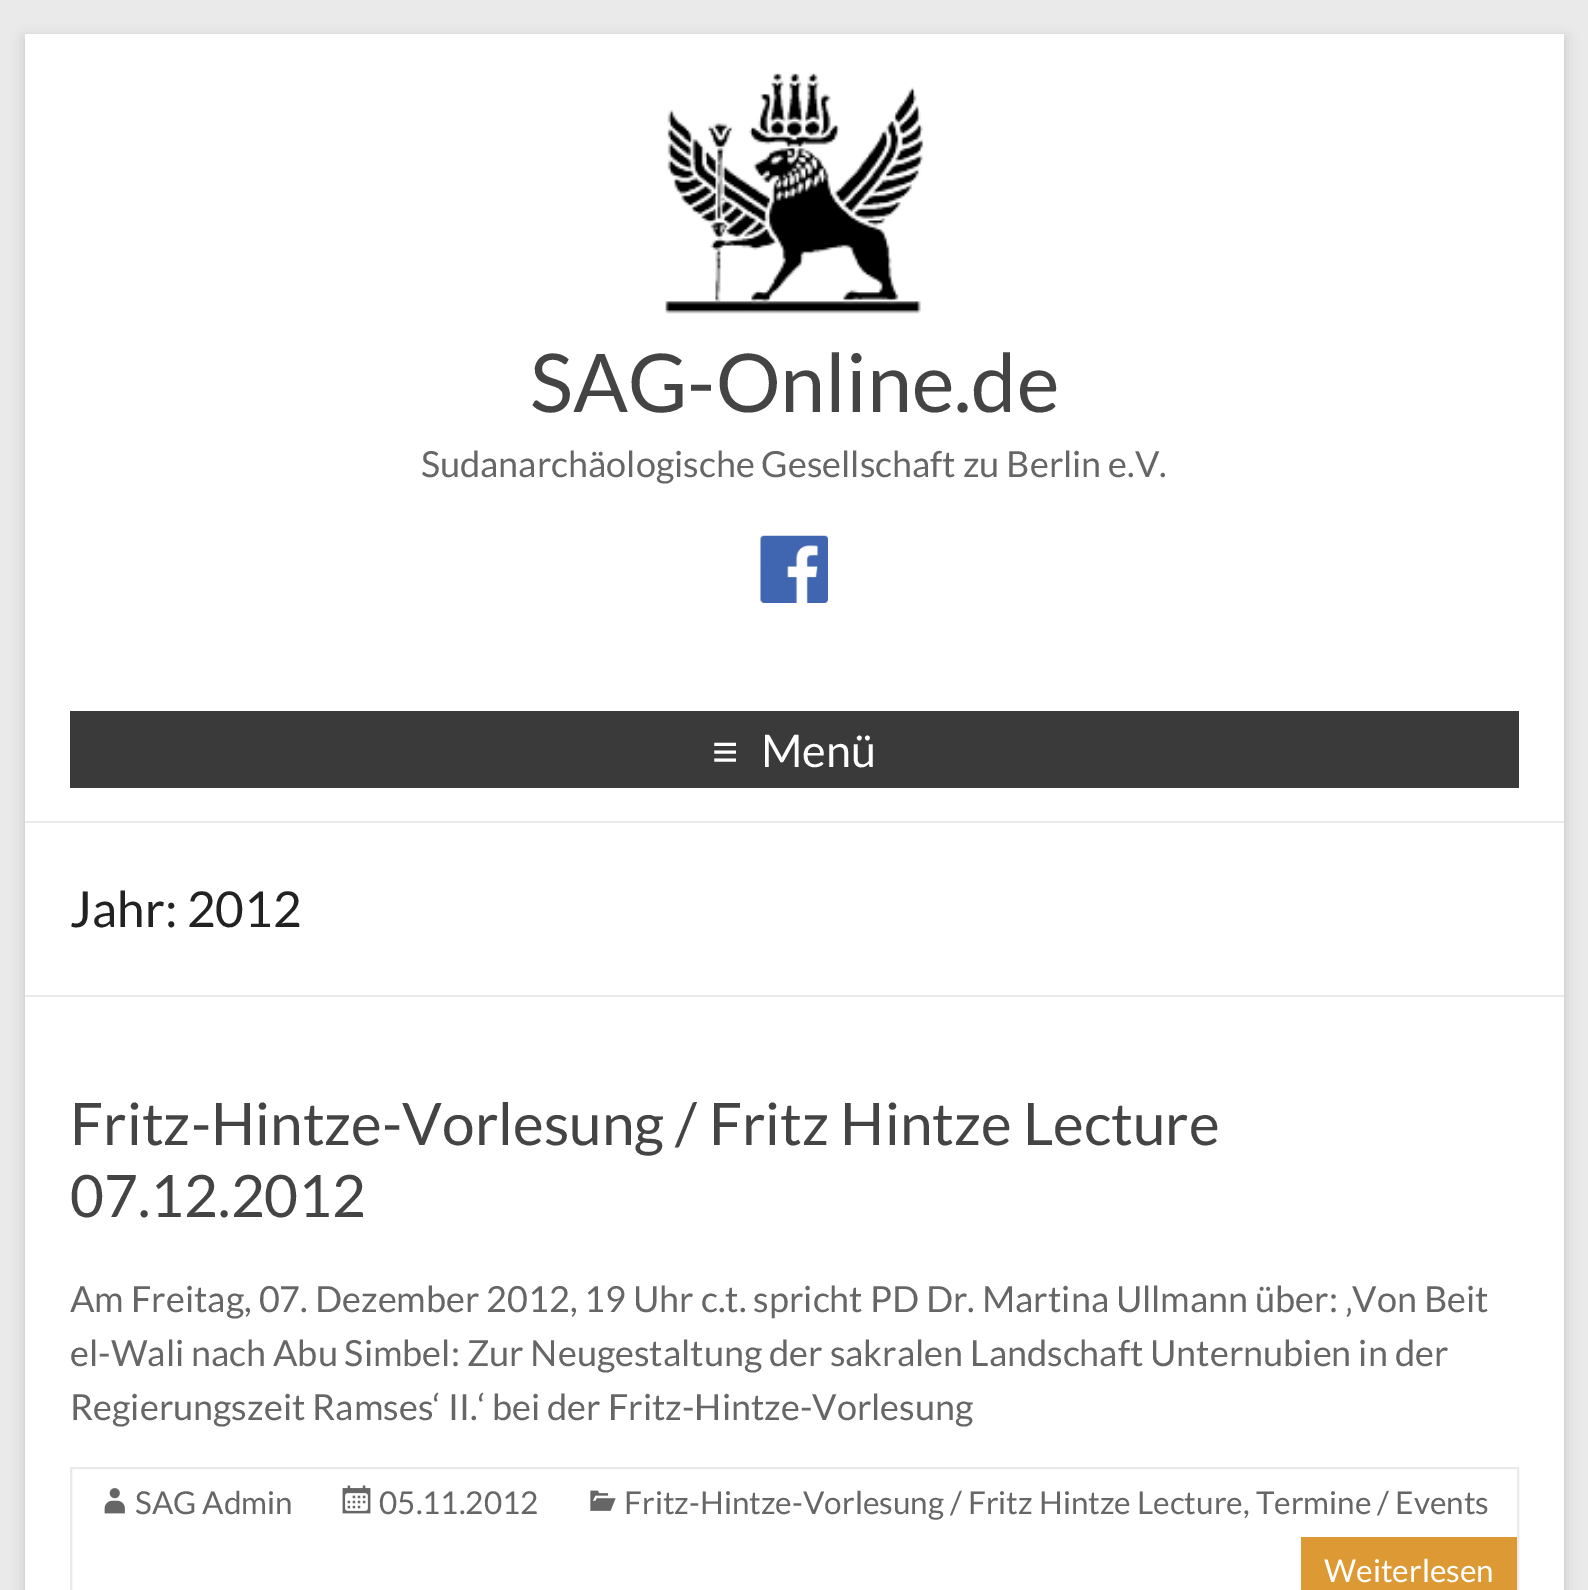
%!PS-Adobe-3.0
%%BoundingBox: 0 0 1588 1590
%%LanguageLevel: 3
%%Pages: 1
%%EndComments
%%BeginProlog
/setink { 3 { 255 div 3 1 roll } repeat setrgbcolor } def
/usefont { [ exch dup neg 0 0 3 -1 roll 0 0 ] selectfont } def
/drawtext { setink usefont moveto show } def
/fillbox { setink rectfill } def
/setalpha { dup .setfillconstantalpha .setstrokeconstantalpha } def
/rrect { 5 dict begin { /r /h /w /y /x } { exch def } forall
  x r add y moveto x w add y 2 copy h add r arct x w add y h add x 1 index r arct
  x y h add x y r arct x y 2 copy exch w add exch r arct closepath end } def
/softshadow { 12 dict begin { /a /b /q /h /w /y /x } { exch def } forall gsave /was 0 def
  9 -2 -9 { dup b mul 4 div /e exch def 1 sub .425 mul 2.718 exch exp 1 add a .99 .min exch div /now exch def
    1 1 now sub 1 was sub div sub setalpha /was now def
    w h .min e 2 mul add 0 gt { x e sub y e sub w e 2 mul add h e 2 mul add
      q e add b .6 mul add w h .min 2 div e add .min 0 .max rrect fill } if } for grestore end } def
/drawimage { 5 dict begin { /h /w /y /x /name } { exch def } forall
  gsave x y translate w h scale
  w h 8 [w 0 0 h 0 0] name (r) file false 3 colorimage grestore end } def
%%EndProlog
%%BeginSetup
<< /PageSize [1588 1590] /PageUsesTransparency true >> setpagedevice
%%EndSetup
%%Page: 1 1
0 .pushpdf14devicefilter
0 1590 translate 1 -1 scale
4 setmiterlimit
0 0 1588 1590 234 234 234 fillbox
100 100 100 setink
25 38 1539 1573 0 7 0.3 softshadow
25 34 1539 1556 255 255 255 fillbox
25 821 1539 2 234 234 234 fillbox
(assets/img1.rgb) 665 73 259 241 drawimage
(SAG-Online.de) 530 412 /Lato-Regular 81 68 68 68 drawtext
(Sudanarchäologische Gesellschaft zu Berlin e.V.) 421 477 /Lato-Regular 36 102 102 102 drawtext
(assets/img2.rgb) 760 535 68 68 drawimage
70 711 1449 77 58 58 58 fillbox
(≡) 712 767 /LiberationSans-Regular 45 255 255 255 drawtext
(Menü) 761 767 /Lato-Regular 45 255 255 255 drawtext
25 995 1539 2 234 234 234 fillbox
(Jahr: 2012) 70 927 /Lato-Regular 49.5 34 34 34 drawtext
(Fritz-Hintze-Vorlesung / Fritz Hintze Lecture) 70 1145 /Lato-Regular 58.5 68 68 68 drawtext
(07.12.2012) 70 1217 /Lato-Regular 58.5 68 68 68 drawtext
(Am Freitag, 07. Dezember 2012, 19 Uhr c.t. spricht PD Dr. Martina Ullmann über: ‚Von Beit) 70 1312 /Lato-Regular 36 102 102 102 drawtext
(el-Wali nach Abu Simbel: Zur Neugestaltung der sakralen Landschaft Unternubien in der) 70 1366 /Lato-Regular 36 102 102 102 drawtext
(Regierungszeit Ramses‘ II.‘ bei der Fritz-Hintze-Vorlesung) 70 1420 /Lato-Regular 36 102 102 102 drawtext
234 234 234 setink
2 setlinewidth
71 1468 1447 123 rectstroke
(assets/img3.rgb) 104 1488 21 26 drawimage
(SAG Admin) 135 1514 /Lato-Regular 31.5 102 102 102 drawtext
(assets/img4.rgb) 342 1485 29 29 drawimage
(05.11.2012) 379 1514 /Lato-Regular 31.5 102 102 102 drawtext
(assets/img5.rgb) 590 1490 26 21 drawimage
(Fritz-Hintze-Vorlesung / Fritz Hintze Lecture, Termine / Events) 624 1514 /Lato-Regular 31.5 102 102 102 drawtext
1301 1537 216 53 221 153 51 fillbox
(Weiterlesen) 1324 1582 /Lato-Regular 31.5 255 255 255 drawtext
.poppdf14devicefilter showpage
%%EOF
